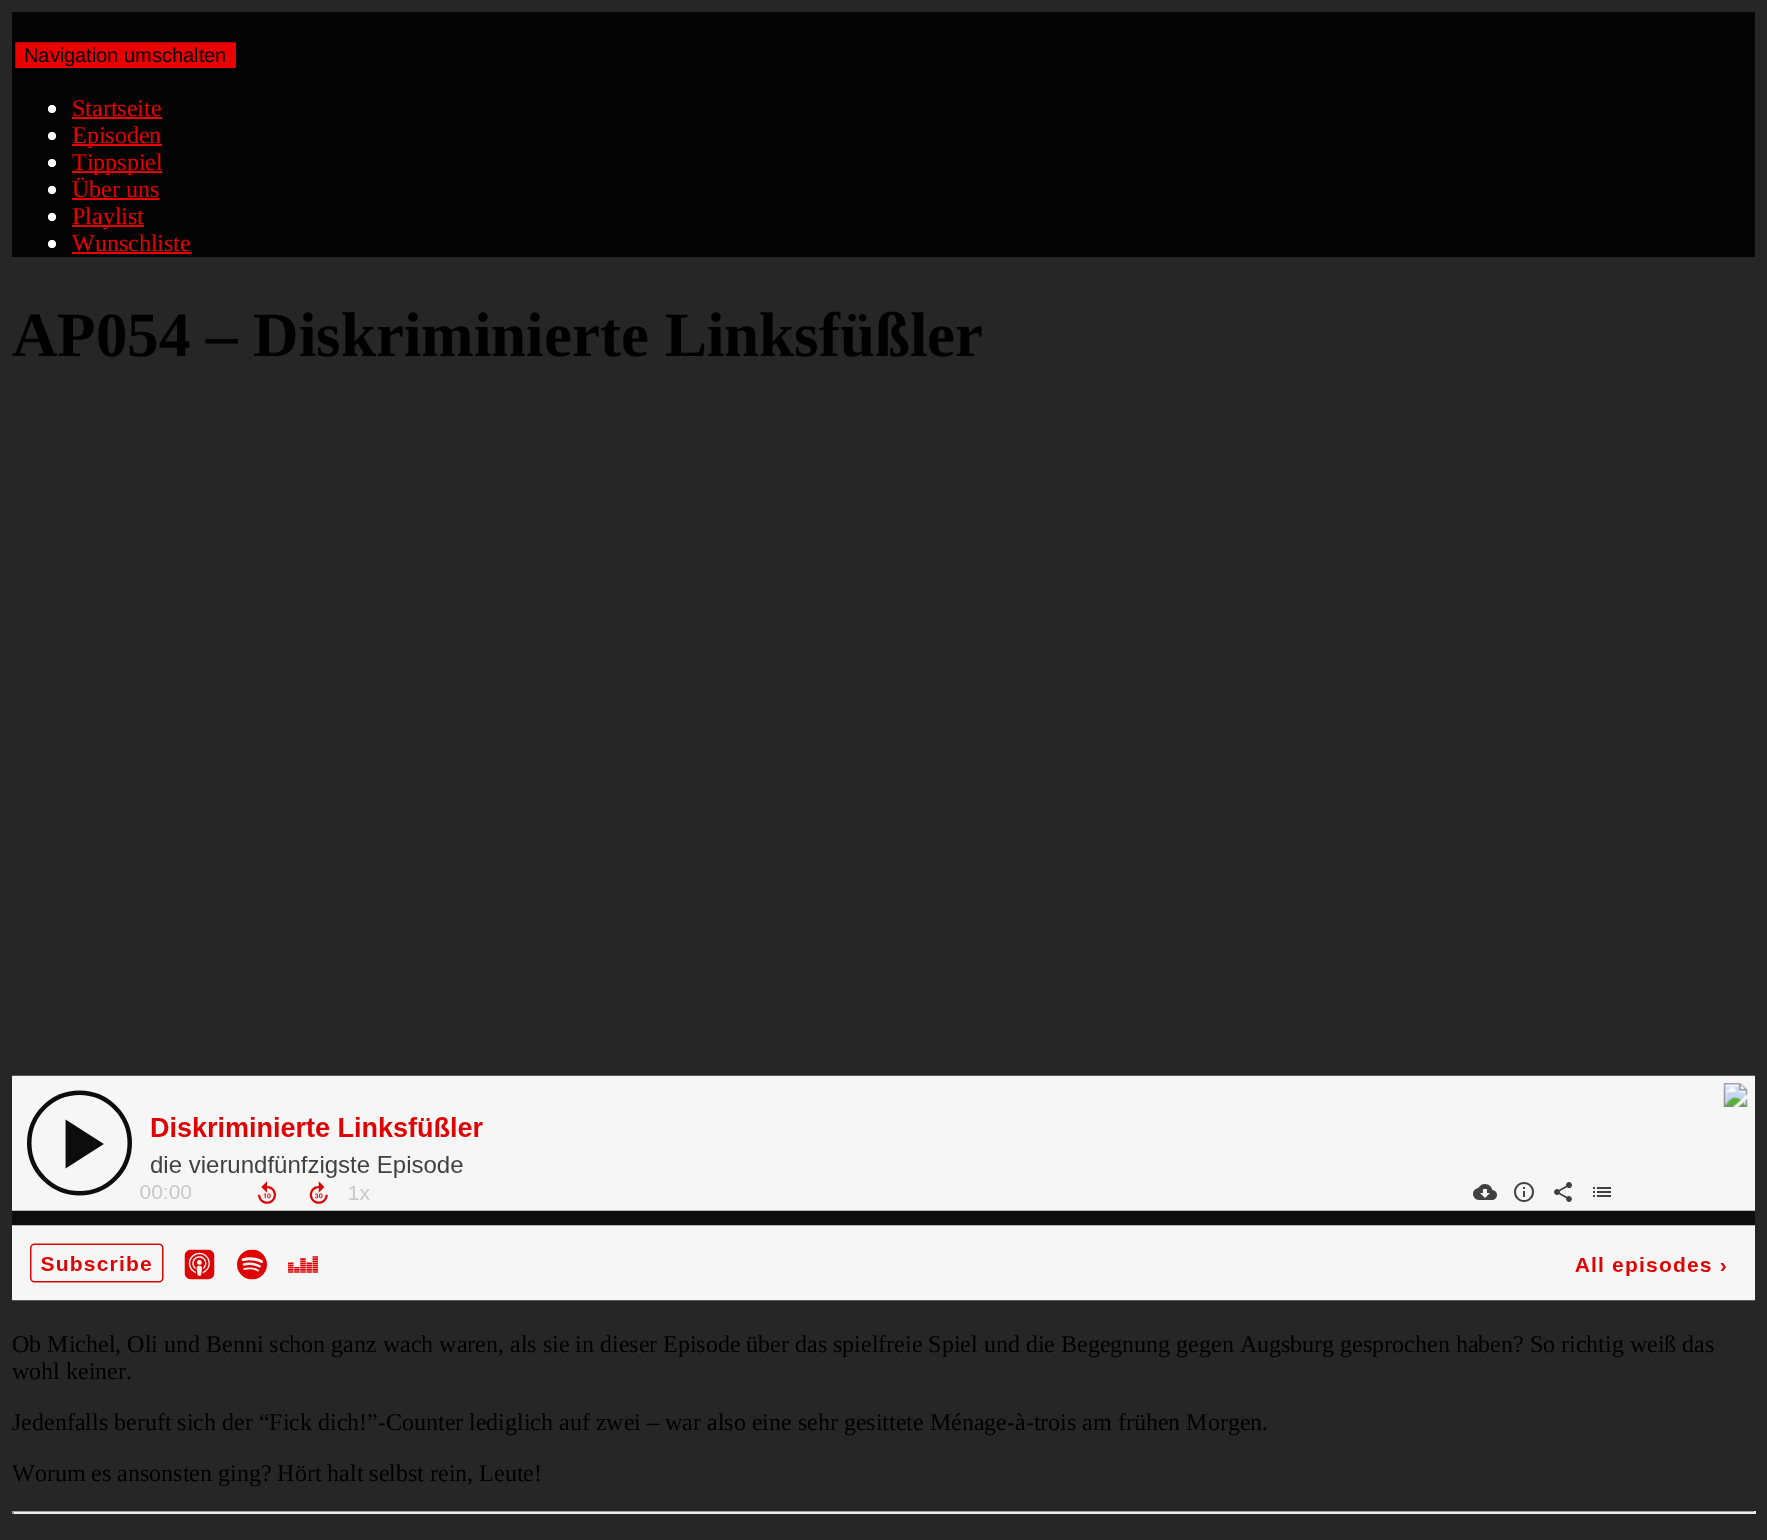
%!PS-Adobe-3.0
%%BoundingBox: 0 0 1767 1540
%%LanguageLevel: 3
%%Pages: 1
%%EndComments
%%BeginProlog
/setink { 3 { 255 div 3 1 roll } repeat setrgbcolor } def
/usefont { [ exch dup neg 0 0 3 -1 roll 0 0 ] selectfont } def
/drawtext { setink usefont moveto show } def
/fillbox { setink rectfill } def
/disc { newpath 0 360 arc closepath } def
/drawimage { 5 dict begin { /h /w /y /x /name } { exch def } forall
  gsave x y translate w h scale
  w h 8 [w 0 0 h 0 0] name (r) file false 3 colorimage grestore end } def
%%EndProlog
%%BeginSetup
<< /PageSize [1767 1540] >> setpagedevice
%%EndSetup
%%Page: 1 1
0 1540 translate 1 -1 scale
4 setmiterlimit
0 0 1767 1540 38 38 38 fillbox
12 12 1743 245 4 4 4 fillbox
234 0 0 setink
13.5 40.5 moveto 237.5 40.5 lineto 237.5 69.5 lineto 13.5 69.5 lineto closepath gsave fill grestore
0 0 0 setink
3 setlinewidth
stroke
(Navigation umschalten) 24 62 /LiberationSans-Regular 20 0 0 0 drawtext
255 255 255 setink
52 109 4 disc fill
(Startseite) 72 116 /LiberationSerif-Regular 24 234 0 0 drawtext
72 117 90 2 234 0 0 fillbox
255 255 255 setink
52 136 4 disc fill
72 144 90 2 234 0 0 fillbox
(Episoden) 72 143 /LiberationSerif-Regular 24 234 0 0 drawtext
255 255 255 setink
52 163 4 disc fill
72 171 90 2 234 0 0 fillbox
(Tippspiel) 72 170 /LiberationSerif-Regular 24 234 0 0 drawtext
255 255 255 setink
52 190 4 disc fill
(Über uns) 72 197 /LiberationSerif-Regular 24 234 0 0 drawtext
72 198 87 2 234 0 0 fillbox
255 255 255 setink
52 217 4 disc fill
72 225 72 2 234 0 0 fillbox
(Playlist) 72 224 /LiberationSerif-Regular 24 234 0 0 drawtext
255 255 255 setink
52 244 4 disc fill
(Wunschliste) 72 251 /LiberationSerif-Regular 24 234 0 0 drawtext
72 252 119 2 234 0 0 fillbox
(AP054 – Diskriminierte Linksfüßler) 12 356 /LiberationSerif-Bold 63 0 0 0 drawtext
(assets/img1.rgb) 12 1075 1743 226 drawimage
(Ob Michel, Oli und Benni schon ganz wach waren, als sie in dieser Episode über das spielfreie Spiel und die Begegnung gegen Augsburg gesprochen haben? So richtig weiß das) 12 1352 /LiberationSerif-Regular 24 0 0 0 drawtext
(wohl keiner.) 12 1379 /LiberationSerif-Regular 24 0 0 0 drawtext
(Jedenfalls beruft sich der “Fick dich!”-Counter lediglich auf zwei – war also eine sehr gesittete Ménage-à-trois am frühen Morgen.) 12 1430 /LiberationSerif-Regular 24 0 0 0 drawtext
(Worum es ansonsten ging? Hört halt selbst rein, Leute!) 12 1481 /LiberationSerif-Regular 24 0 0 0 drawtext
12 1511 1743 1 159 159 159 fillbox
1754 1511 2 3 238 238 238 fillbox
12 1512 1743 2 238 238 238 fillbox
12 1511 2 3 159 159 159 fillbox
showpage
%%EOF
